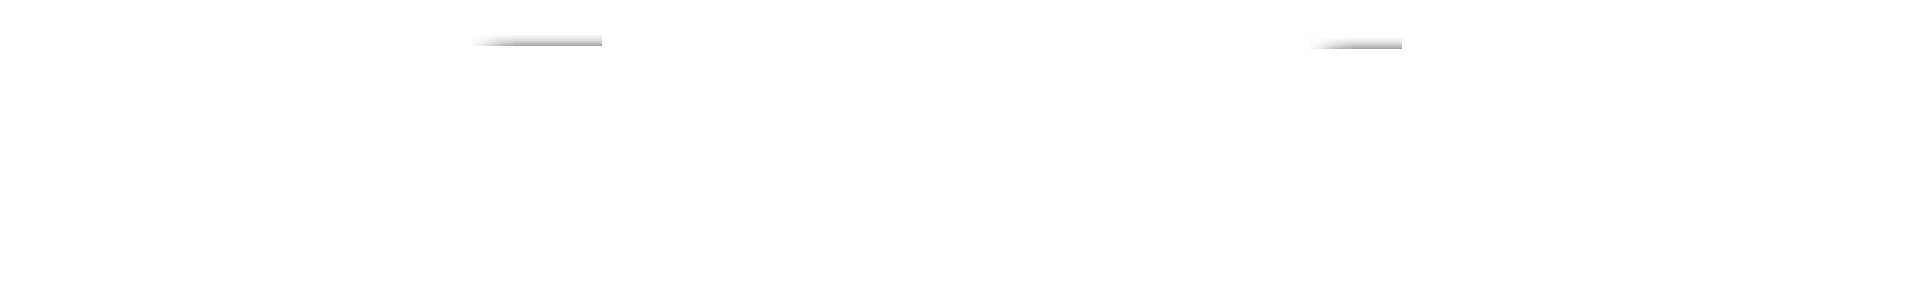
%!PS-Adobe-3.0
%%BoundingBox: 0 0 1918 308
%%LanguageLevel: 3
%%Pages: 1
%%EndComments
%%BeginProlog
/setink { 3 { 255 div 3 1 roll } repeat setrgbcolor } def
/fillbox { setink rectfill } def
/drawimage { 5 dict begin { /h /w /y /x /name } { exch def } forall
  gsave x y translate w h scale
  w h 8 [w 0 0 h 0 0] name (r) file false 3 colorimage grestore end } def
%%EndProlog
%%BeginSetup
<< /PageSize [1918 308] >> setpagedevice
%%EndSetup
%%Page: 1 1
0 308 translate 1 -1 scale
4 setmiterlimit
0 0 1918 308 255 255 255 fillbox
(assets/img1.rgb) 514 35 88 11 drawimage
(assets/img2.rgb) 472 35 42 11 drawimage
(assets/img3.rgb) 1352 38 50 11 drawimage
(assets/img2.rgb) 1310 38 42 11 drawimage
showpage
%%EOF
